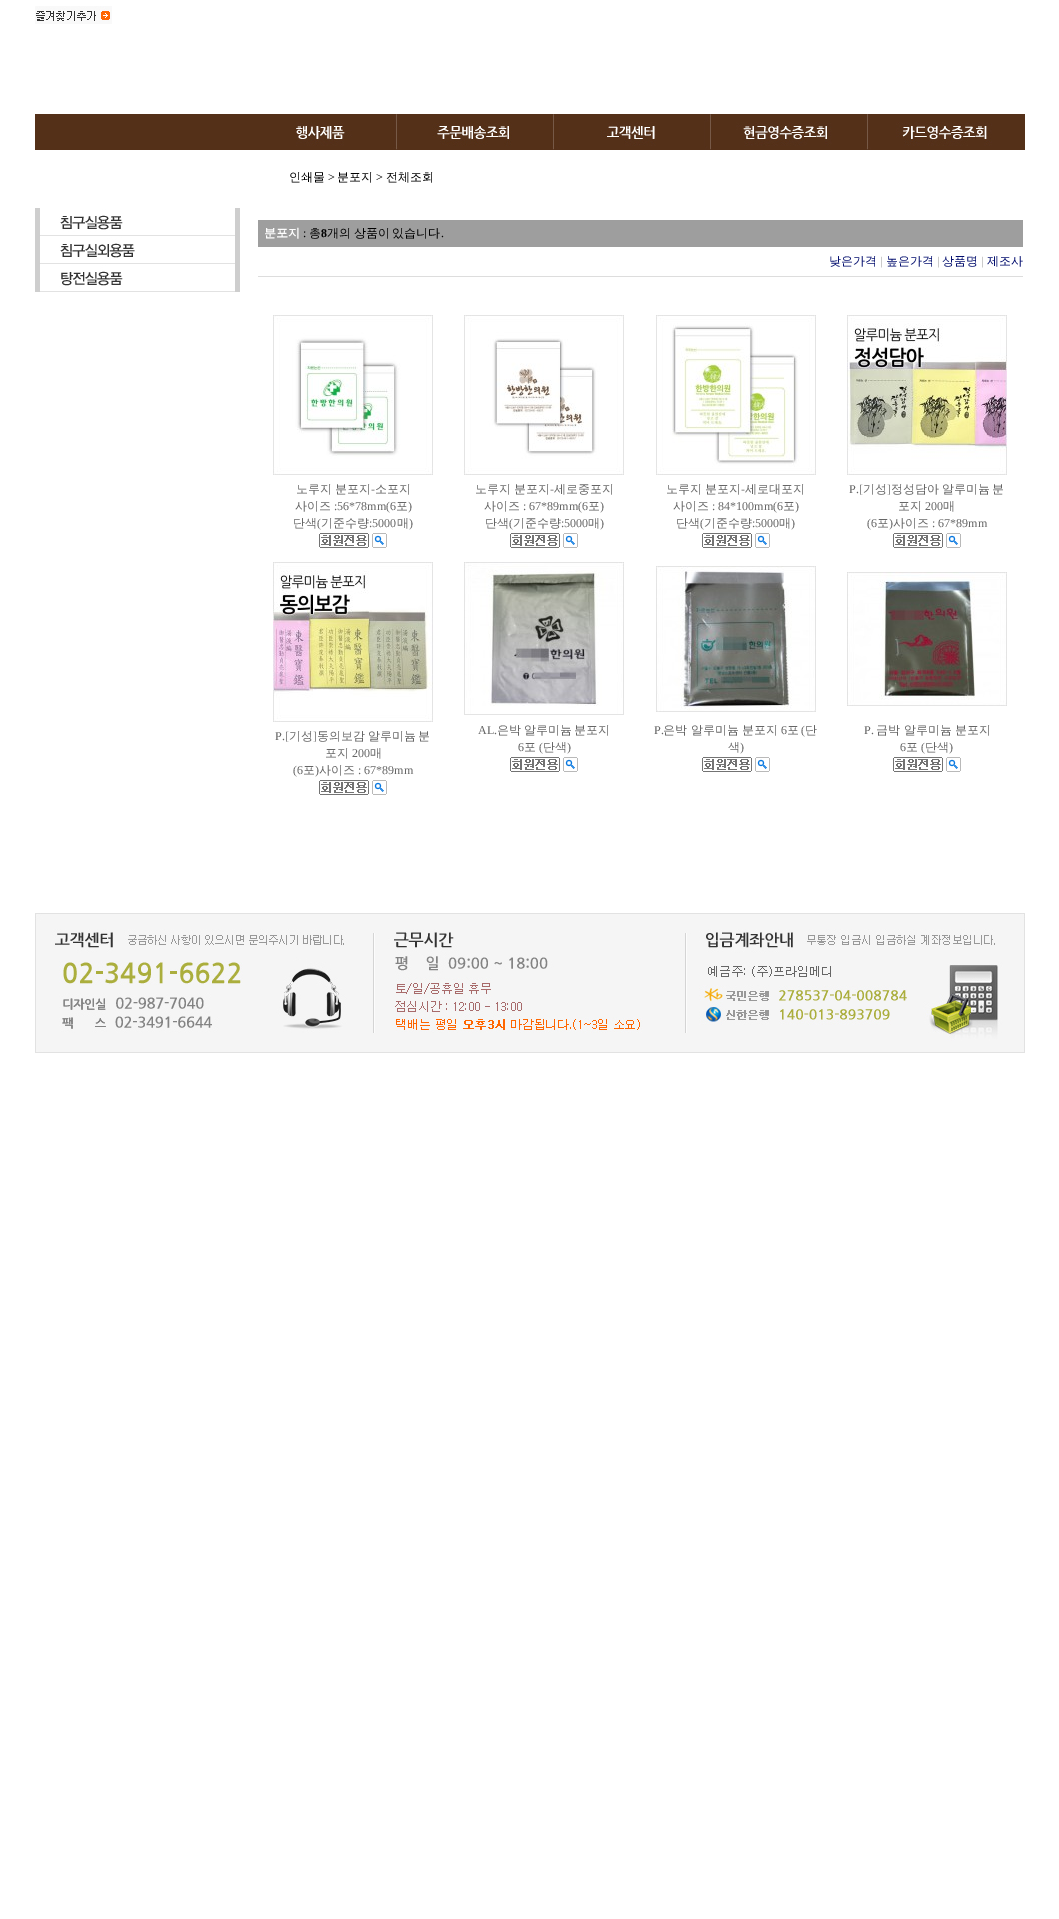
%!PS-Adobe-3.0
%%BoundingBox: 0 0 1059 1919
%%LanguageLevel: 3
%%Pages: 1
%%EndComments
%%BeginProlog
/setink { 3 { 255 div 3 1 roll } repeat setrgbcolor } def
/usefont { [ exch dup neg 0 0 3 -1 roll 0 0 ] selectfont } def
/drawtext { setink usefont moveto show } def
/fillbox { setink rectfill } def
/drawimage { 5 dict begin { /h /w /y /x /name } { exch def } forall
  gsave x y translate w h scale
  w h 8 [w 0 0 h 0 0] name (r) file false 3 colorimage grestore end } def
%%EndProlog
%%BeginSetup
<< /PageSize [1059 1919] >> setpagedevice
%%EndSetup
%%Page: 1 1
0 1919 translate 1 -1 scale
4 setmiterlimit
0 0 1059 1919 255 255 255 fillbox
(assets/img1.rgb) 35 6 77 18 drawimage
35 114 205 36 84 48 24 fillbox
(assets/img2.rgb) 240 114 785 36 drawimage
(assets/img3.rgb) 35 208 205 28 drawimage
(assets/img4.rgb) 35 236 205 28 drawimage
(assets/img5.rgb) 35 264 205 28 drawimage
(인쇄물) 289 181 /WenQuanYiZenHei-Medium 12 0 0 0 drawtext
(>) 328 181 /LiberationSerif-Regular 12 0 0 0 drawtext
(분포지) 337 181 /WenQuanYiZenHei-Medium 12 0 0 0 drawtext
(>) 376 181 /LiberationSerif-Regular 12 0 0 0 drawtext
(전체조회) 386 181 /WenQuanYiZenHei-Medium 12 0 0 0 drawtext
258 220 765 27 158 158 158 fillbox
(분포지) 264 237 /WenQuanYiZenHei-Bold 12 255 255 255 drawtext
(:) 303 237 /LiberationSerif-Regular 12 0 0 0 drawtext
(총) 309 237 /WenQuanYiZenHei-Medium 12 0 0 0 drawtext
(8) 321 237 /LiberationSerif-Bold 12 0 0 0 drawtext
/WenQuanYiZenHei-Medium 12 usefont
327 237 moveto -1 0 32 (개의 상품이 있습니다) widthshow
(.) 441 237 /LiberationSerif-Regular 12 0 0 0 drawtext
(낮은가격) 829 265 /WenQuanYiZenHei-Medium 12 4 15 111 drawtext
(|) 880 265 /LiberationSerif-Regular 12 158 158 158 drawtext
(높은가격) 886 265 /WenQuanYiZenHei-Medium 12 4 15 111 drawtext
(|) 937 265 /LiberationSerif-Regular 12 158 158 158 drawtext
(상품명) 942 265 /WenQuanYiZenHei-Medium 12 4 15 111 drawtext
(|) 981 265 /LiberationSerif-Regular 12 158 158 158 drawtext
(제조사) 987 265 /WenQuanYiZenHei-Medium 12 4 15 111 drawtext
258 276 765 1 221 221 221 fillbox
(assets/img6.rgb) 273 315 160 160 drawimage
102 102 102 setink
296 493 moveto -1 0 32 (노루지 분포지) widthshow
(-) 371 493 /LiberationSerif-Regular 12 102 102 102 drawtext
(소포지) 375 493 /WenQuanYiZenHei-Medium 12 102 102 102 drawtext
(사이즈) 295 510 /WenQuanYiZenHei-Medium 12 102 102 102 drawtext
(:56*78mm\(6) 334 510 /LiberationSerif-Regular 12 102 102 102 drawtext
(포) 396 510 /WenQuanYiZenHei-Medium 12 102 102 102 drawtext
(\)) 408 510 /LiberationSerif-Regular 12 102 102 102 drawtext
(단색) 293 527 /WenQuanYiZenHei-Medium 12 102 102 102 drawtext
(\() 317 527 /LiberationSerif-Regular 12 102 102 102 drawtext
(기준수량) 321 527 /WenQuanYiZenHei-Medium 12 102 102 102 drawtext
(:5000) 369 527 /LiberationSerif-Regular 12 102 102 102 drawtext
(매) 397 527 /WenQuanYiZenHei-Medium 12 102 102 102 drawtext
(\)) 409 527 /LiberationSerif-Regular 12 102 102 102 drawtext
(assets/img7.rgb) 319 533 50 15 drawimage
(assets/img8.rgb) 372 533 15 15 drawimage
(assets/img9.rgb) 464 315 160 160 drawimage
/WenQuanYiZenHei-Medium 12 usefont
475 493 moveto -1 0 32 (노루지 분포지) widthshow
(-) 550 493 /LiberationSerif-Regular 12 102 102 102 drawtext
(세로중포지) 554 493 /WenQuanYiZenHei-Medium 12 102 102 102 drawtext
(사이즈) 484 510 /WenQuanYiZenHei-Medium 12 102 102 102 drawtext
(: 67*89mm\(6) 523 510 /LiberationSerif-Regular 12 102 102 102 drawtext
(포) 588 510 /WenQuanYiZenHei-Medium 12 102 102 102 drawtext
(\)) 600 510 /LiberationSerif-Regular 12 102 102 102 drawtext
(단색) 485 527 /WenQuanYiZenHei-Medium 12 102 102 102 drawtext
(\() 509 527 /LiberationSerif-Regular 12 102 102 102 drawtext
(기준수량) 513 527 /WenQuanYiZenHei-Medium 12 102 102 102 drawtext
(:5000) 561 527 /LiberationSerif-Regular 12 102 102 102 drawtext
(매) 588 527 /WenQuanYiZenHei-Medium 12 102 102 102 drawtext
(\)) 600 527 /LiberationSerif-Regular 12 102 102 102 drawtext
(assets/img7.rgb) 510 533 50 15 drawimage
(assets/img8.rgb) 563 533 15 15 drawimage
(assets/img10.rgb) 656 315 160 160 drawimage
/WenQuanYiZenHei-Medium 12 usefont
666 493 moveto -1 0 32 (노루지 분포지) widthshow
(-) 741 493 /LiberationSerif-Regular 12 102 102 102 drawtext
(세로대포지) 745 493 /WenQuanYiZenHei-Medium 12 102 102 102 drawtext
(사이즈) 673 510 /WenQuanYiZenHei-Medium 12 102 102 102 drawtext
(: 84*100mm\(6) 712 510 /LiberationSerif-Regular 12 102 102 102 drawtext
(포) 783 510 /WenQuanYiZenHei-Medium 12 102 102 102 drawtext
(\)) 795 510 /LiberationSerif-Regular 12 102 102 102 drawtext
(단색) 676 527 /WenQuanYiZenHei-Medium 12 102 102 102 drawtext
(\() 700 527 /LiberationSerif-Regular 12 102 102 102 drawtext
(기준수량) 704 527 /WenQuanYiZenHei-Medium 12 102 102 102 drawtext
(:5000) 752 527 /LiberationSerif-Regular 12 102 102 102 drawtext
(매) 779 527 /WenQuanYiZenHei-Medium 12 102 102 102 drawtext
(\)) 791 527 /LiberationSerif-Regular 12 102 102 102 drawtext
(assets/img7.rgb) 702 533 50 15 drawimage
(assets/img8.rgb) 755 533 15 15 drawimage
(assets/img11.rgb) 847 315 160 160 drawimage
(P.[) 849 493 /LiberationSerif-Regular 12 102 102 102 drawtext
(기성) 863 493 /WenQuanYiZenHei-Medium 12 102 102 102 drawtext
(]) 887 493 /LiberationSerif-Regular 12 102 102 102 drawtext
/WenQuanYiZenHei-Medium 12 usefont
891 493 moveto -1 0 32 (정성담아 알루미늄 분) widthshow
(포지) 898 510 /WenQuanYiZenHei-Medium 12 102 102 102 drawtext
(200) 925 510 /LiberationSerif-Regular 12 102 102 102 drawtext
(매) 943 510 /WenQuanYiZenHei-Medium 12 102 102 102 drawtext
(\(6) 867 527 /LiberationSerif-Regular 12 102 102 102 drawtext
(포) 877 527 /WenQuanYiZenHei-Medium 12 102 102 102 drawtext
(\)) 889 527 /LiberationSerif-Regular 12 102 102 102 drawtext
(사이즈) 893 527 /WenQuanYiZenHei-Medium 12 102 102 102 drawtext
(: 67*89mm) 932 527 /LiberationSerif-Regular 12 102 102 102 drawtext
(assets/img7.rgb) 893 533 50 15 drawimage
(assets/img8.rgb) 946 533 15 15 drawimage
(assets/img12.rgb) 273 562 160 160 drawimage
(P.[) 275 740 /LiberationSerif-Regular 12 102 102 102 drawtext
(기성) 289 740 /WenQuanYiZenHei-Medium 12 102 102 102 drawtext
(]) 313 740 /LiberationSerif-Regular 12 102 102 102 drawtext
/WenQuanYiZenHei-Medium 12 usefont
317 740 moveto -1 0 32 (동의보감 알루미늄 분) widthshow
(포지) 325 757 /WenQuanYiZenHei-Medium 12 102 102 102 drawtext
(200) 352 757 /LiberationSerif-Regular 12 102 102 102 drawtext
(매) 370 757 /WenQuanYiZenHei-Medium 12 102 102 102 drawtext
(\(6) 293 774 /LiberationSerif-Regular 12 102 102 102 drawtext
(포) 303 774 /WenQuanYiZenHei-Medium 12 102 102 102 drawtext
(\)) 315 774 /LiberationSerif-Regular 12 102 102 102 drawtext
(사이즈) 319 774 /WenQuanYiZenHei-Medium 12 102 102 102 drawtext
(: 67*89mm) 358 774 /LiberationSerif-Regular 12 102 102 102 drawtext
(assets/img7.rgb) 319 780 50 15 drawimage
(assets/img8.rgb) 372 780 15 15 drawimage
(assets/img13.rgb) 464 562 160 153 drawimage
(AL.) 478 734 /LiberationSerif-Regular 12 102 102 102 drawtext
/WenQuanYiZenHei-Medium 12 usefont
497 734 moveto -1 0 32 (은박 알루미늄 분포지) widthshow
(6) 518 751 /LiberationSerif-Regular 12 102 102 102 drawtext
(포) 524 751 /WenQuanYiZenHei-Medium 12 102 102 102 drawtext
(\() 539 751 /LiberationSerif-Regular 12 102 102 102 drawtext
(단색) 543 751 /WenQuanYiZenHei-Medium 12 102 102 102 drawtext
(\)) 567 751 /LiberationSerif-Regular 12 102 102 102 drawtext
(assets/img7.rgb) 510 757 50 15 drawimage
(assets/img8.rgb) 563 757 15 15 drawimage
(assets/img14.rgb) 656 566 160 146 drawimage
(P.) 654 734 /LiberationSerif-Regular 12 102 102 102 drawtext
(은박 알루미늄 분포지) 663 734 /WenQuanYiZenHei-Medium 12 102 102 102 drawtext
(6) 781 734 /LiberationSerif-Regular 12 102 102 102 drawtext
(포) 787 734 /WenQuanYiZenHei-Medium 12 102 102 102 drawtext
(\() 801 734 /LiberationSerif-Regular 12 102 102 102 drawtext
(단) 805 734 /WenQuanYiZenHei-Medium 12 102 102 102 drawtext
(색) 728 751 /WenQuanYiZenHei-Medium 12 102 102 102 drawtext
(\)) 740 751 /LiberationSerif-Regular 12 102 102 102 drawtext
(assets/img7.rgb) 702 757 50 15 drawimage
(assets/img8.rgb) 755 757 15 15 drawimage
(assets/img15.rgb) 847 572 160 134 drawimage
(P.) 864 734 /LiberationSerif-Regular 12 102 102 102 drawtext
(금박 알루미늄 분포지) 876 734 /WenQuanYiZenHei-Medium 12 102 102 102 drawtext
(6) 900 751 /LiberationSerif-Regular 12 102 102 102 drawtext
(포) 906 751 /WenQuanYiZenHei-Medium 12 102 102 102 drawtext
(\() 921 751 /LiberationSerif-Regular 12 102 102 102 drawtext
(단색) 925 751 /WenQuanYiZenHei-Medium 12 102 102 102 drawtext
(\)) 949 751 /LiberationSerif-Regular 12 102 102 102 drawtext
(assets/img7.rgb) 893 757 50 15 drawimage
(assets/img8.rgb) 946 757 15 15 drawimage
(assets/img16.rgb) 35 913 990 140 drawimage
showpage
%%EOF
